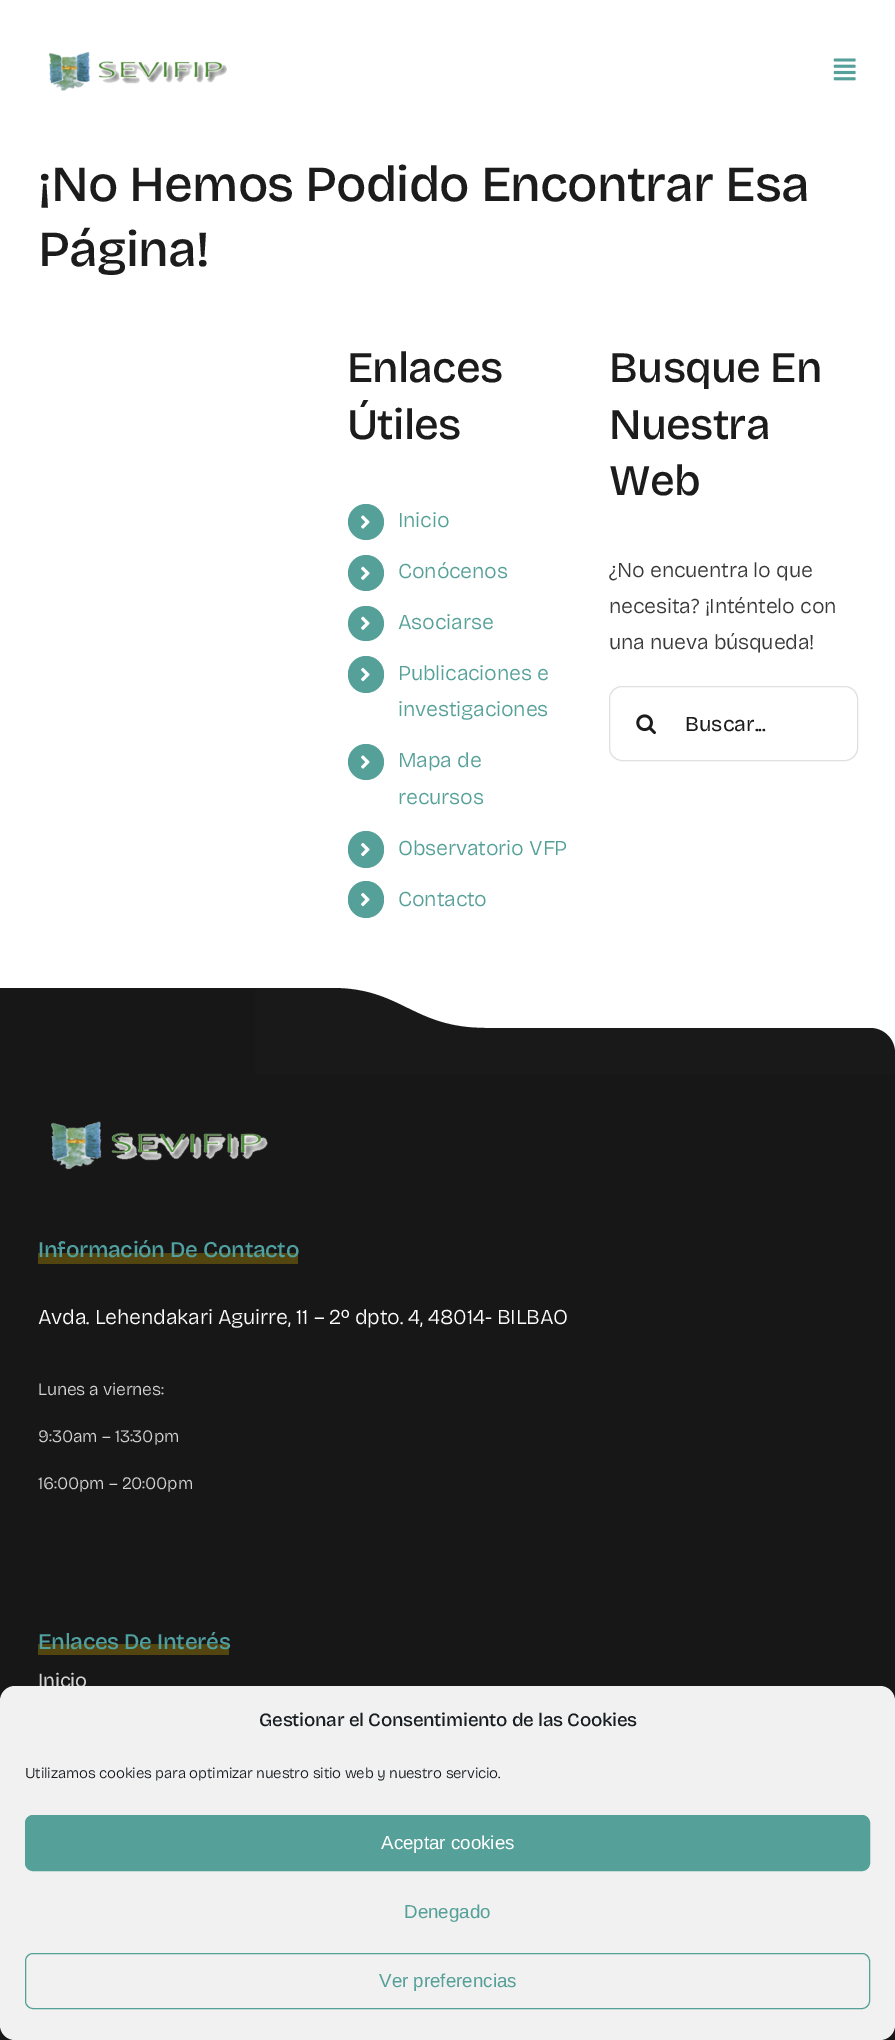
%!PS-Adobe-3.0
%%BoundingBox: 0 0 895 2040
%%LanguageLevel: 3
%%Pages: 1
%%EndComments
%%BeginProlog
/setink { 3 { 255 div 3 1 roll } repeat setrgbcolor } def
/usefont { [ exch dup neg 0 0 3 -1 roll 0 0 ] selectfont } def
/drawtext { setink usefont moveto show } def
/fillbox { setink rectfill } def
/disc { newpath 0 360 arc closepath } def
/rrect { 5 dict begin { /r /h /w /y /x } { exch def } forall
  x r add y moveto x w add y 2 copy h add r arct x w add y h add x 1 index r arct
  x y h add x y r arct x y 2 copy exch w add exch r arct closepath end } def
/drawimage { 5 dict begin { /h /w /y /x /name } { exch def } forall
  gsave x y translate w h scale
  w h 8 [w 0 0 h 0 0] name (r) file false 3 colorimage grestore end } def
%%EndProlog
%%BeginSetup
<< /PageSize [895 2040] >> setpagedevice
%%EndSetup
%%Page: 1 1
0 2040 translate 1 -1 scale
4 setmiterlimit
0 0 895 2040 255 255 255 fillbox
(assets/img1.rgb) 49 51 178 40 drawimage
(assets/img2.rgb) 833 58 23 23 drawimage
/BricolageGrotesque-Medium 50.5 usefont
28 28 28 setink
38 201 moveto -0.75 0 (¡No Hemos Podido Encontrar Esa) ashow
38 266 moveto -0.75 0 (Página!) ashow
/BricolageGrotesque-Medium 43.5 usefont
347 382 moveto -0.75 0 (Enlaces) ashow
347 439 moveto -0.75 0 (Útiles) ashow
85 160 152 setink
366 522 18 disc fill
(assets/img3.rgb) 361 515 9 14 drawimage
/BricolageGrotesque-Light 21.25 usefont
398 527 moveto -0.2 0 (Inicio) ashow
366 573 18 disc fill
(assets/img4.rgb) 361 566 9 14 drawimage
398 578 moveto -0.2 0 (Conócenos) ashow
348 606 36 35 17.5 rrect fill
(assets/img4.rgb) 361 616 9 14 drawimage
398 629 moveto -0.2 0 (Asociarse) ashow
348 656 36 37 18 rrect fill
(assets/img5.rgb) 361 667 9 15 drawimage
398 680 moveto -0.2 0 (Publicaciones e) ashow
398 716 moveto -0.2 0 (investigaciones) ashow
366 762 18 disc fill
(assets/img3.rgb) 361 755 9 14 drawimage
398 767 moveto -0.2 0 (Mapa de) ashow
398 804 moveto -0.2 0 (recursos) ashow
348 831 36 37 18 rrect fill
(assets/img5.rgb) 361 842 9 15 drawimage
398 855 moveto -0.2 0 (Observatorio VFP) ashow
348 881 36 37 18 rrect fill
(assets/img5.rgb) 361 892 9 15 drawimage
398 906 moveto -0.2 0 (Contacto) ashow
/BricolageGrotesque-Medium 43.5 usefont
28 28 28 setink
609 382 moveto -0.75 0 (Busque En) ashow
609 439 moveto -0.75 0 (Nuestra) ashow
609 495 moveto -0.75 0 (Web) ashow
/BricolageGrotesque-Light 21.25 usefont
56 56 56 setink
609 577 moveto -0.2 0 (¿No encuentra lo que) ashow
609 613 moveto -0.2 0 (necesita? ¡Inténtelo con) ashow
609 649 moveto -0.2 0 (una nueva búsqueda!) ashow
224 224 224 setink
609.5 686.5 248 74 12.5 rrect stroke
(assets/img6.rgb) 636 714 20 21 drawimage
(Buscar...) 685 731 /BricolageGrotesque-Regular 21.25 28 28 28 drawtext
0 988 255 87 23 23 23 fillbox
gsave
255 988 640 87 rectclip
25 25 25 setink
-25 1175 moveto 870 1175 lineto 884 1175 895 1164 895 1150 curveto 895 1053 lineto 895 1039 884 1028 870 1028 curveto 486 1028 lineto 412 1028 402 988 332 988 curveto -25 988 lineto -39 988 -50 999 -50 1012 curveto -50 1150 lineto -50 1164 -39 1175 -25 1175 curveto closepath fill
grestore
0 1075 895 965 23 23 23 fillbox
(assets/img7.rgb) 51 1121 217 49 drawimage
38 1253 260 11 82 69 16 fillbox
/BricolageGrotesque-Medium 22.5 usefont
80 160 159 setink
38 1257 moveto -0.3 0 (Información De Contacto) ashow
/BricolageGrotesque-Light 21.25 usefont
255 255 255 setink
38 1324 moveto -0.2 0 (Avda. Lehendakari Aguirre, 11 – 2º dpto. 4, 48014- BILBAO) ashow
/BricolageGrotesque-Light 17.5 usefont
212 212 212 setink
38 1395 moveto -0.2 0 (Lunes a viernes:) ashow
38 1442 moveto -0.2 0 (9:30am – 13:30pm) ashow
38 1489 moveto -0.2 0 (16:00pm – 20:00pm) ashow
38 1644 191 11 82 69 16 fillbox
/BricolageGrotesque-Medium 22.5 usefont
80 160 159 setink
38 1649 moveto -0.3 0 (Enlaces De Interés) ashow
/BricolageGrotesque-Regular 20 usefont
212 212 212 setink
38 1687 moveto -0.25 0 (Inicio) ashow
241 241 241 setink
0 1686 895 354 15 rrect fill
/BricolageGrotesque-Medium 18.75 usefont
25 30 35 setink
259 1726 moveto -0.2 0 (Gestionar el Consentimiento de las Cookies) ashow
/BricolageGrotesque-Light 15 usefont
25 1778 moveto -0.2 0 (Utilizamos cookies para optimizar nuestro sitio web y nuestro servicio.) ashow
85 160 152 setink
25.5 1815.5 844 55 7.5 rrect gsave fill grestore
stroke
(Aceptar cookies) 381 1849 /LiberationSans-Regular 18.75 255 255 255 drawtext
(Denegado) 404 1918 /LiberationSans-Regular 18.75 85 160 152 drawtext
25.5 1953.5 844 55 7.5 rrect stroke
(Ver preferencias) 379 1987 /LiberationSans-Regular 18.75 85 160 152 drawtext
showpage
%%EOF
